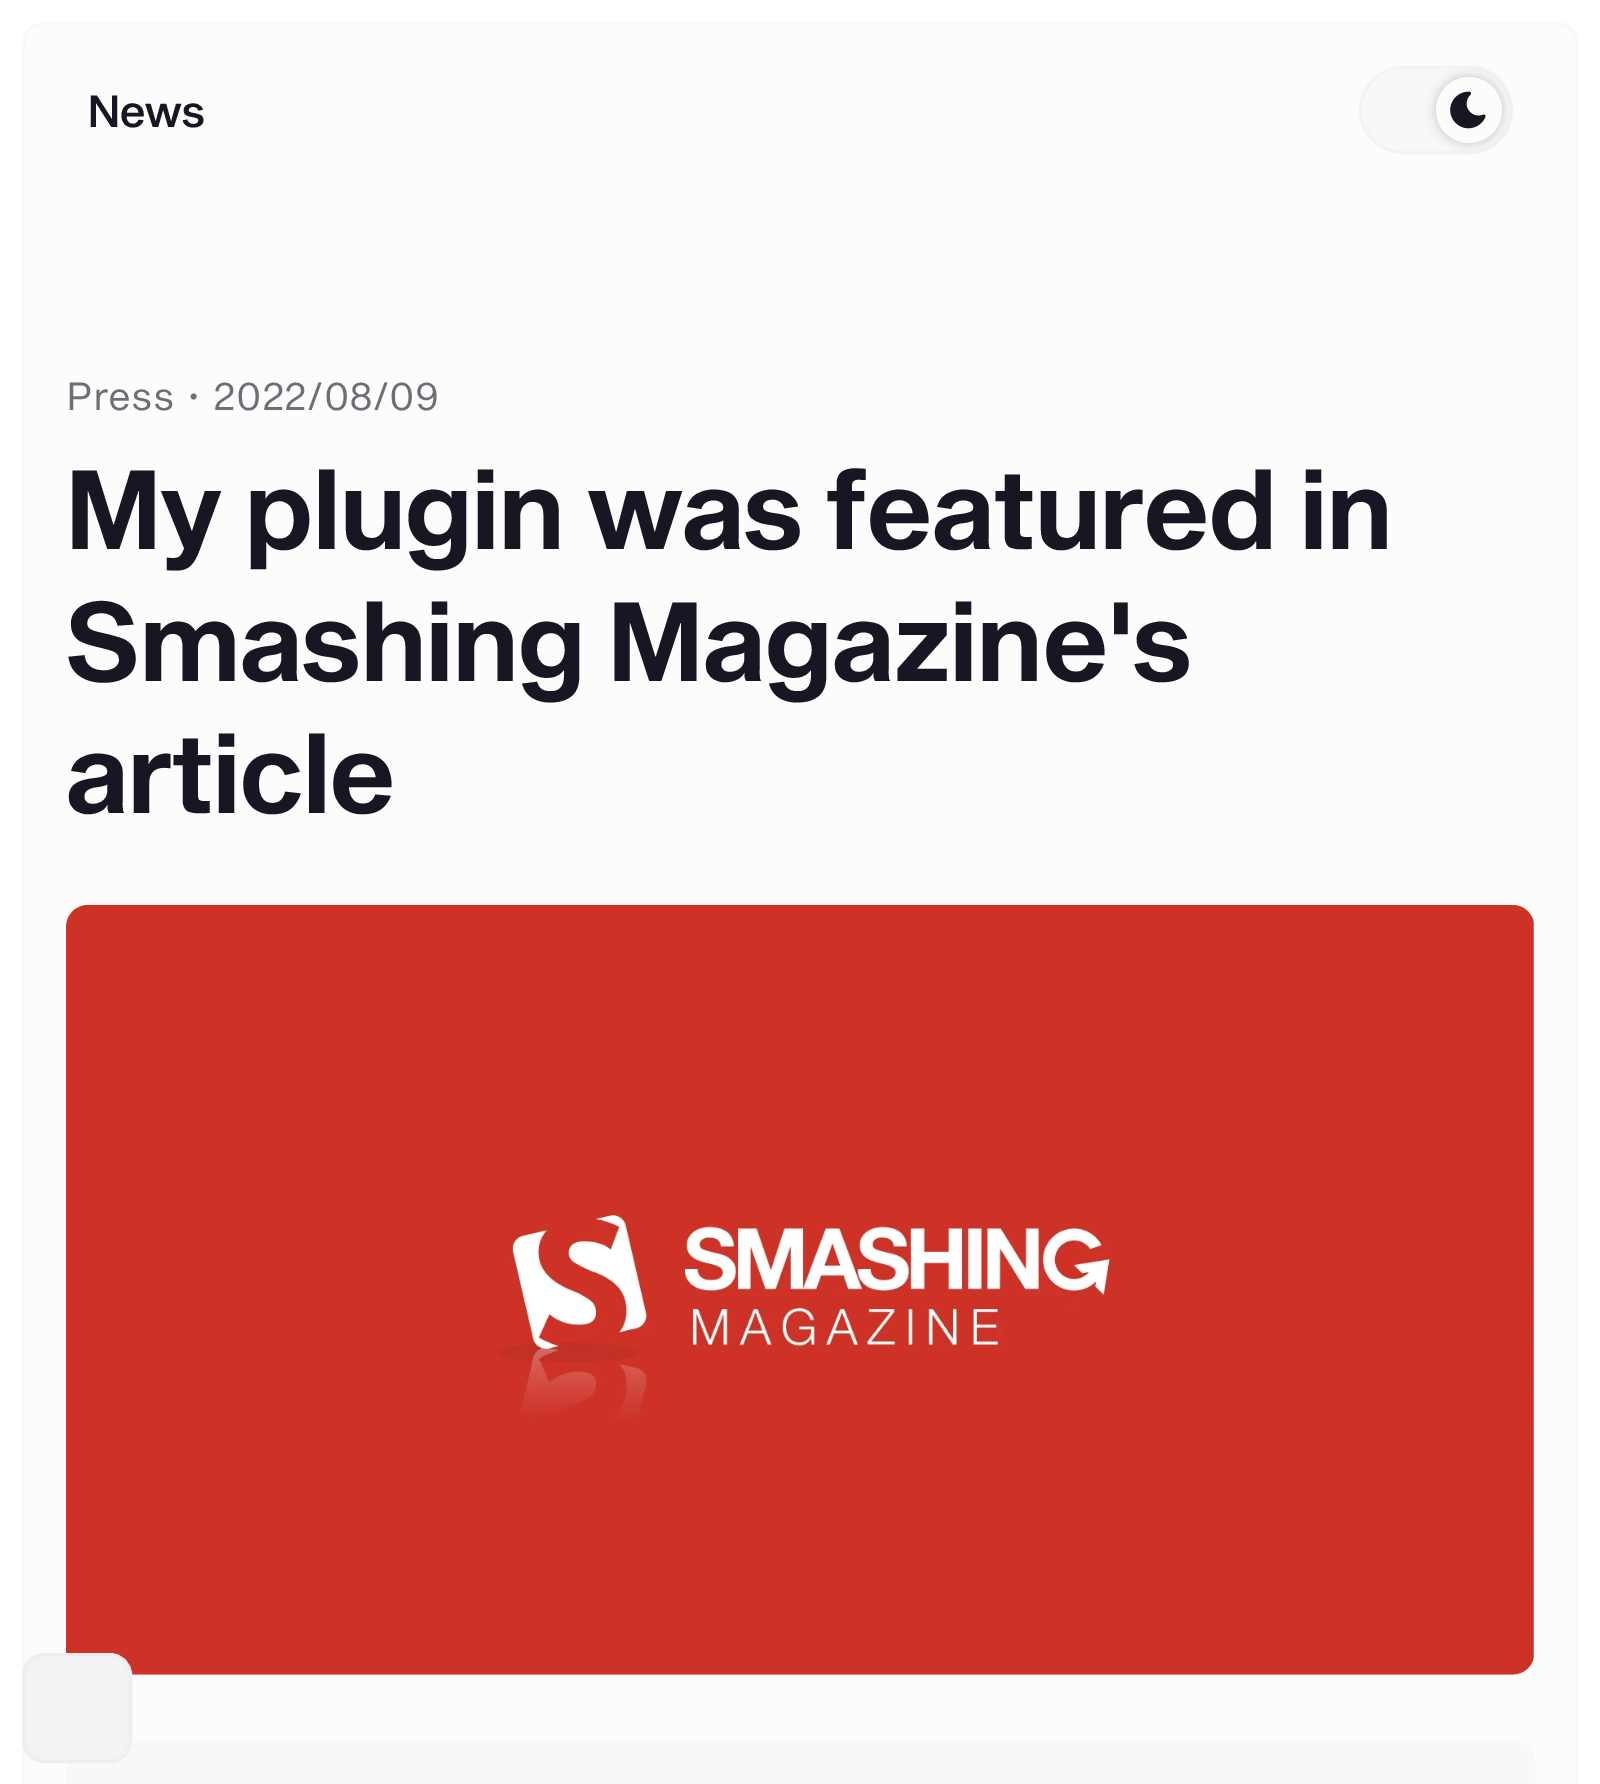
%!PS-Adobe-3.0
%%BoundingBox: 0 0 1600 1784
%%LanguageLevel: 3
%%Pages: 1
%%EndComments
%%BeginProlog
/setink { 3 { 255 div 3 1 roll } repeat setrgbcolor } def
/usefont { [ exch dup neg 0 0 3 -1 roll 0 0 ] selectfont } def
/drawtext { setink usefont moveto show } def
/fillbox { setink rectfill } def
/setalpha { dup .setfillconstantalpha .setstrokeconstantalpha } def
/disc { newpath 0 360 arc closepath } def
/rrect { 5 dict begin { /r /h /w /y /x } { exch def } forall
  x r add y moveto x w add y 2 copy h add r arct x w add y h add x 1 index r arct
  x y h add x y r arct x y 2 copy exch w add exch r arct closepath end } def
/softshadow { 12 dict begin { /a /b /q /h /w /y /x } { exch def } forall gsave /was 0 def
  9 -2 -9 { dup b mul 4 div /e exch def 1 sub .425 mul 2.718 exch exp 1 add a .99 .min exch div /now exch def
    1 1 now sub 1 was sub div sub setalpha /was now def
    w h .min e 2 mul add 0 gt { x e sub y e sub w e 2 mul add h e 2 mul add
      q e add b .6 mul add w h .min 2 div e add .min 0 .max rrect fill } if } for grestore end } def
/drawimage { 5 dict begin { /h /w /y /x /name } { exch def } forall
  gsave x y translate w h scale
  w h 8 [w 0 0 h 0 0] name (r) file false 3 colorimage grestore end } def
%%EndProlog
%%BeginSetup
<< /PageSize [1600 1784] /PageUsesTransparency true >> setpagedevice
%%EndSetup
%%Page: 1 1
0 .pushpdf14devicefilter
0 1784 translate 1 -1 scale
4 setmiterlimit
0 0 1600 1784 255 255 255 fillbox
253 252 253 setink
44 22 moveto 1557 22 lineto 1569 22 1579 32 1579 44 curveto 1579 198 lineto 22 198 lineto 22 44 lineto 22 32 32 22 44 22 curveto closepath fill
(News) 88 127 /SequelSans-Medium 44 26 21 35 drawtext
249 248 249 setink
1360.5 67.5 151 85 42.5 rrect gsave fill grestore
244 242 244 setink
3 setlinewidth
stroke
0 0 0 setink
1436 77 66 66 33 5.5 0.2 softshadow
253 252 253 setink
1469 110 33 disc fill
(assets/img1.rgb) 1450 91 36 38 drawimage
249 248 249 setink
44 22 moveto 1556 22 lineto 1569 22 1578 32 1578 44 curveto 1578 198 lineto 22 198 lineto 22 44 lineto 22 32 32 22 44 22 curveto closepath 44 25 moveto 1556 25 lineto 1567 25 1576 33 1576 44 curveto 1576 198 lineto 25 198 lineto 25 44 lineto 25 33 33 25 44 25 curveto closepath eofill
25 198 1551 1586 253 252 253 fillbox
1576 198 3 1586 249 248 249 fillbox
22 198 3 1586 249 248 249 fillbox
(Press) 66 410 /SequelSans-Regular 38.5 111 110 119 drawtext
(・) 174 410 /WenQuanYiZenHei-Medium 38.5 111 110 119 drawtext
(2022/08/09) 213 410 /SequelSans-Regular 38.5 111 110 119 drawtext
(My plugin was featured in) 66 549 /SequelSans-SemiBold 110 26 21 35 drawtext
(Smashing Magazine's) 66 681 /SequelSans-SemiBold 110 26 21 35 drawtext
(article) 66 813 /SequelSans-SemiBold 110 26 21 35 drawtext
(assets/img2.rgb) 66 904 1468 771 drawimage
249 248 249 setink
66 1741 1469 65 22 rrect fill
244 242 244 setink
23.5 1654.5 107 107 20.5 rrect gsave fill grestore
238 237 239 setink
stroke
.poppdf14devicefilter showpage
%%EOF
